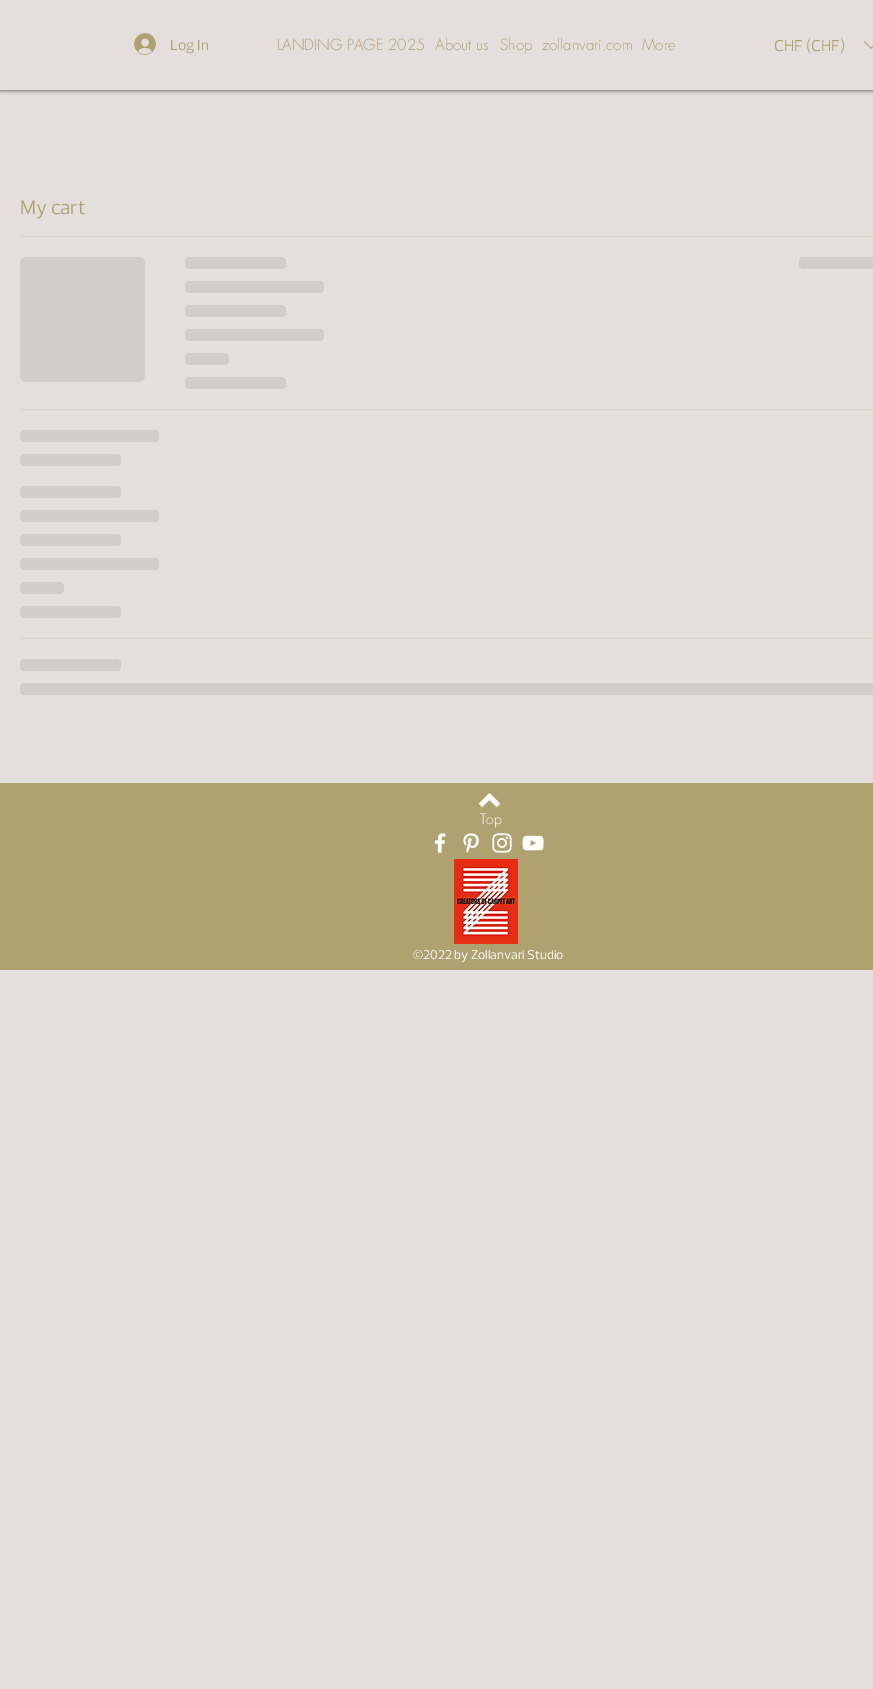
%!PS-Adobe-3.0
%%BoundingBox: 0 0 873 1689
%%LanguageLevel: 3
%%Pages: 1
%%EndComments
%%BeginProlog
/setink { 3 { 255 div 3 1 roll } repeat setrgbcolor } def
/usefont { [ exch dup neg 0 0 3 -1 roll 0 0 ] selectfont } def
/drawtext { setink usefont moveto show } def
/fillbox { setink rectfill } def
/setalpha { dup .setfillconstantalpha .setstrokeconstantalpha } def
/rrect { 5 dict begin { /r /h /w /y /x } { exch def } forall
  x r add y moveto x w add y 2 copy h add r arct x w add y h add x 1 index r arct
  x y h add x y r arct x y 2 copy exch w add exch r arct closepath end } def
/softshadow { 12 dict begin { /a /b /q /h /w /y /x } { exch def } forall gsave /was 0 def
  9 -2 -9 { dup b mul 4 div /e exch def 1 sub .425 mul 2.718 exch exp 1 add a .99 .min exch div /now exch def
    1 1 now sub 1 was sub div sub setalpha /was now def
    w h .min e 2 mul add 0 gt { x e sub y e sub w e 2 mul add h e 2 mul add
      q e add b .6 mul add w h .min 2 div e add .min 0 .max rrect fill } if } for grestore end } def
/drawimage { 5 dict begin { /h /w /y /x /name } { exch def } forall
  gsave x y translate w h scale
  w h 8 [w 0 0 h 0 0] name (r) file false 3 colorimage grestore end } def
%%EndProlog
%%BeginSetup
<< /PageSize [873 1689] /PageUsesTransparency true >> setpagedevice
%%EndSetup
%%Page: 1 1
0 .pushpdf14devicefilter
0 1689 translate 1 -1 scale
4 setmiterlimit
0 0 873 1689 228 222 220 fillbox
gsave
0 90 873 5 rectclip
0 0 0 setink
0 0 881 90 0 2.5 0.7 softshadow
grestore
(assets/img1.rgb) 134 33 22 22 drawimage
(Log In) 170 50 /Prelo-Regular 15 176 161 113 drawtext
(LANDING PAGE 2025) 277 50 /futura-Light 15 176 161 113 drawtext
(About us) 435 50 /futura-Light 15 176 161 113 drawtext
(Shop) 500 50 /futura-Light 15 176 161 113 drawtext
(zollanvari.com) 542 50 /futura-Light 15 176 161 113 drawtext
(More) 642 50 /futura-Light 15 176 161 113 drawtext
(CHF \(CHF\)) 774 51 /Prelo-Regular 16 176 161 113 drawtext
(assets/img2.rgb) 864 41 9 8 drawimage
20 236 853 1 218 210 199 fillbox
(My cart) 20 214 /Prelo-Regular 20 176 161 113 drawtext
gsave 20 257 125 125 8 rrect clip newpath
<< /ShadingType 2 /ColorSpace /DeviceRGB /Coords [20 320 520 320] /Extend [true true] /Function << /FunctionType 3 /Domain [0 1] /Functions [<< /FunctionType 2 /Domain [0 1] /C0 [0.824 0.8 0.792] /C1 [0.824 0.8 0.792] /N 1 >> << /FunctionType 2 /Domain [0 1] /C0 [0.824 0.8 0.792] /C1 [0.749 0.729 0.725] /N 1 >> << /FunctionType 2 /Domain [0 1] /C0 [0.749 0.729 0.725] /C1 [0.824 0.8 0.792] /N 1 >> << /FunctionType 2 /Domain [0 1] /C0 [0.824 0.8 0.792] /C1 [0.824 0.8 0.792] /N 1 >>] /Bounds [0.25 0.37 0.63] /Encode [0 1 0 1 0 1 0 1] >> >> shfill grestore
gsave 185 257 101 12 6 rrect clip newpath
<< /ShadingType 2 /ColorSpace /DeviceRGB /Coords [185 263 589 263] /Extend [true true] /Function << /FunctionType 3 /Domain [0 1] /Functions [<< /FunctionType 2 /Domain [0 1] /C0 [0.824 0.8 0.792] /C1 [0.824 0.8 0.792] /N 1 >> << /FunctionType 2 /Domain [0 1] /C0 [0.824 0.8 0.792] /C1 [0.749 0.729 0.725] /N 1 >> << /FunctionType 2 /Domain [0 1] /C0 [0.749 0.729 0.725] /C1 [0.824 0.8 0.792] /N 1 >> << /FunctionType 2 /Domain [0 1] /C0 [0.824 0.8 0.792] /C1 [0.824 0.8 0.792] /N 1 >>] /Bounds [0.25 0.37 0.63] /Encode [0 1 0 1 0 1 0 1] >> >> shfill grestore
gsave 185 281 139 12 6 rrect clip newpath
<< /ShadingType 2 /ColorSpace /DeviceRGB /Coords [185 287 741 287] /Extend [true true] /Function << /FunctionType 3 /Domain [0 1] /Functions [<< /FunctionType 2 /Domain [0 1] /C0 [0.824 0.8 0.792] /C1 [0.824 0.8 0.792] /N 1 >> << /FunctionType 2 /Domain [0 1] /C0 [0.824 0.8 0.792] /C1 [0.749 0.729 0.725] /N 1 >> << /FunctionType 2 /Domain [0 1] /C0 [0.749 0.729 0.725] /C1 [0.824 0.8 0.792] /N 1 >> << /FunctionType 2 /Domain [0 1] /C0 [0.824 0.8 0.792] /C1 [0.824 0.8 0.792] /N 1 >>] /Bounds [0.25 0.37 0.63] /Encode [0 1 0 1 0 1 0 1] >> >> shfill grestore
gsave 185 305 101 12 6 rrect clip newpath
<< /ShadingType 2 /ColorSpace /DeviceRGB /Coords [185 311 589 311] /Extend [true true] /Function << /FunctionType 3 /Domain [0 1] /Functions [<< /FunctionType 2 /Domain [0 1] /C0 [0.824 0.8 0.792] /C1 [0.824 0.8 0.792] /N 1 >> << /FunctionType 2 /Domain [0 1] /C0 [0.824 0.8 0.792] /C1 [0.749 0.729 0.725] /N 1 >> << /FunctionType 2 /Domain [0 1] /C0 [0.749 0.729 0.725] /C1 [0.824 0.8 0.792] /N 1 >> << /FunctionType 2 /Domain [0 1] /C0 [0.824 0.8 0.792] /C1 [0.824 0.8 0.792] /N 1 >>] /Bounds [0.25 0.37 0.63] /Encode [0 1 0 1 0 1 0 1] >> >> shfill grestore
gsave 185 329 139 12 6 rrect clip newpath
<< /ShadingType 2 /ColorSpace /DeviceRGB /Coords [185 335 741 335] /Extend [true true] /Function << /FunctionType 3 /Domain [0 1] /Functions [<< /FunctionType 2 /Domain [0 1] /C0 [0.824 0.8 0.792] /C1 [0.824 0.8 0.792] /N 1 >> << /FunctionType 2 /Domain [0 1] /C0 [0.824 0.8 0.792] /C1 [0.749 0.729 0.725] /N 1 >> << /FunctionType 2 /Domain [0 1] /C0 [0.749 0.729 0.725] /C1 [0.824 0.8 0.792] /N 1 >> << /FunctionType 2 /Domain [0 1] /C0 [0.824 0.8 0.792] /C1 [0.824 0.8 0.792] /N 1 >>] /Bounds [0.25 0.37 0.63] /Encode [0 1 0 1 0 1 0 1] >> >> shfill grestore
gsave 185 353 44 12 6 rrect clip newpath
<< /ShadingType 2 /ColorSpace /DeviceRGB /Coords [185 359 361 359] /Extend [true true] /Function << /FunctionType 3 /Domain [0 1] /Functions [<< /FunctionType 2 /Domain [0 1] /C0 [0.824 0.8 0.792] /C1 [0.824 0.8 0.792] /N 1 >> << /FunctionType 2 /Domain [0 1] /C0 [0.824 0.8 0.792] /C1 [0.749 0.729 0.725] /N 1 >> << /FunctionType 2 /Domain [0 1] /C0 [0.749 0.729 0.725] /C1 [0.824 0.8 0.792] /N 1 >> << /FunctionType 2 /Domain [0 1] /C0 [0.824 0.8 0.792] /C1 [0.824 0.8 0.792] /N 1 >>] /Bounds [0.25 0.37 0.63] /Encode [0 1 0 1 0 1 0 1] >> >> shfill grestore
gsave 185 377 101 12 6 rrect clip newpath
<< /ShadingType 2 /ColorSpace /DeviceRGB /Coords [185 383 589 383] /Extend [true true] /Function << /FunctionType 3 /Domain [0 1] /Functions [<< /FunctionType 2 /Domain [0 1] /C0 [0.824 0.8 0.792] /C1 [0.824 0.8 0.792] /N 1 >> << /FunctionType 2 /Domain [0 1] /C0 [0.824 0.8 0.792] /C1 [0.749 0.729 0.725] /N 1 >> << /FunctionType 2 /Domain [0 1] /C0 [0.749 0.729 0.725] /C1 [0.824 0.8 0.792] /N 1 >> << /FunctionType 2 /Domain [0 1] /C0 [0.824 0.8 0.792] /C1 [0.824 0.8 0.792] /N 1 >>] /Bounds [0.25 0.37 0.63] /Encode [0 1 0 1 0 1 0 1] >> >> shfill grestore
gsave 799 257 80 12 6 rrect clip newpath
<< /ShadingType 2 /ColorSpace /DeviceRGB /Coords [799 263 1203 263] /Extend [true true] /Function << /FunctionType 3 /Domain [0 1] /Functions [<< /FunctionType 2 /Domain [0 1] /C0 [0.824 0.8 0.792] /C1 [0.824 0.8 0.792] /N 1 >> << /FunctionType 2 /Domain [0 1] /C0 [0.824 0.8 0.792] /C1 [0.749 0.729 0.725] /N 1 >> << /FunctionType 2 /Domain [0 1] /C0 [0.749 0.729 0.725] /C1 [0.824 0.8 0.792] /N 1 >> << /FunctionType 2 /Domain [0 1] /C0 [0.824 0.8 0.792] /C1 [0.824 0.8 0.792] /N 1 >>] /Bounds [0.25 0.37 0.63] /Encode [0 1 0 1 0 1 0 1] >> >> shfill grestore
20 409 853 1 218 210 199 fillbox
gsave 20 430 139 12 6 rrect clip newpath
<< /ShadingType 2 /ColorSpace /DeviceRGB /Coords [20 436 576 436] /Extend [true true] /Function << /FunctionType 3 /Domain [0 1] /Functions [<< /FunctionType 2 /Domain [0 1] /C0 [0.824 0.8 0.792] /C1 [0.824 0.8 0.792] /N 1 >> << /FunctionType 2 /Domain [0 1] /C0 [0.824 0.8 0.792] /C1 [0.749 0.729 0.725] /N 1 >> << /FunctionType 2 /Domain [0 1] /C0 [0.749 0.729 0.725] /C1 [0.824 0.8 0.792] /N 1 >> << /FunctionType 2 /Domain [0 1] /C0 [0.824 0.8 0.792] /C1 [0.824 0.8 0.792] /N 1 >>] /Bounds [0.25 0.37 0.63] /Encode [0 1 0 1 0 1 0 1] >> >> shfill grestore
gsave 20 454 101 12 6 rrect clip newpath
<< /ShadingType 2 /ColorSpace /DeviceRGB /Coords [20 460 424 460] /Extend [true true] /Function << /FunctionType 3 /Domain [0 1] /Functions [<< /FunctionType 2 /Domain [0 1] /C0 [0.824 0.8 0.792] /C1 [0.824 0.8 0.792] /N 1 >> << /FunctionType 2 /Domain [0 1] /C0 [0.824 0.8 0.792] /C1 [0.749 0.729 0.725] /N 1 >> << /FunctionType 2 /Domain [0 1] /C0 [0.749 0.729 0.725] /C1 [0.824 0.8 0.792] /N 1 >> << /FunctionType 2 /Domain [0 1] /C0 [0.824 0.8 0.792] /C1 [0.824 0.8 0.792] /N 1 >>] /Bounds [0.25 0.37 0.63] /Encode [0 1 0 1 0 1 0 1] >> >> shfill grestore
gsave 20 486 101 12 6 rrect clip newpath
<< /ShadingType 2 /ColorSpace /DeviceRGB /Coords [20 492 424 492] /Extend [true true] /Function << /FunctionType 3 /Domain [0 1] /Functions [<< /FunctionType 2 /Domain [0 1] /C0 [0.824 0.8 0.792] /C1 [0.824 0.8 0.792] /N 1 >> << /FunctionType 2 /Domain [0 1] /C0 [0.824 0.8 0.792] /C1 [0.749 0.729 0.725] /N 1 >> << /FunctionType 2 /Domain [0 1] /C0 [0.749 0.729 0.725] /C1 [0.824 0.8 0.792] /N 1 >> << /FunctionType 2 /Domain [0 1] /C0 [0.824 0.8 0.792] /C1 [0.824 0.8 0.792] /N 1 >>] /Bounds [0.25 0.37 0.63] /Encode [0 1 0 1 0 1 0 1] >> >> shfill grestore
gsave 20 510 139 12 6 rrect clip newpath
<< /ShadingType 2 /ColorSpace /DeviceRGB /Coords [20 516 576 516] /Extend [true true] /Function << /FunctionType 3 /Domain [0 1] /Functions [<< /FunctionType 2 /Domain [0 1] /C0 [0.824 0.8 0.792] /C1 [0.824 0.8 0.792] /N 1 >> << /FunctionType 2 /Domain [0 1] /C0 [0.824 0.8 0.792] /C1 [0.749 0.729 0.725] /N 1 >> << /FunctionType 2 /Domain [0 1] /C0 [0.749 0.729 0.725] /C1 [0.824 0.8 0.792] /N 1 >> << /FunctionType 2 /Domain [0 1] /C0 [0.824 0.8 0.792] /C1 [0.824 0.8 0.792] /N 1 >>] /Bounds [0.25 0.37 0.63] /Encode [0 1 0 1 0 1 0 1] >> >> shfill grestore
gsave 20 534 101 12 6 rrect clip newpath
<< /ShadingType 2 /ColorSpace /DeviceRGB /Coords [20 540 424 540] /Extend [true true] /Function << /FunctionType 3 /Domain [0 1] /Functions [<< /FunctionType 2 /Domain [0 1] /C0 [0.824 0.8 0.792] /C1 [0.824 0.8 0.792] /N 1 >> << /FunctionType 2 /Domain [0 1] /C0 [0.824 0.8 0.792] /C1 [0.749 0.729 0.725] /N 1 >> << /FunctionType 2 /Domain [0 1] /C0 [0.749 0.729 0.725] /C1 [0.824 0.8 0.792] /N 1 >> << /FunctionType 2 /Domain [0 1] /C0 [0.824 0.8 0.792] /C1 [0.824 0.8 0.792] /N 1 >>] /Bounds [0.25 0.37 0.63] /Encode [0 1 0 1 0 1 0 1] >> >> shfill grestore
gsave 20 558 139 12 6 rrect clip newpath
<< /ShadingType 2 /ColorSpace /DeviceRGB /Coords [20 564 576 564] /Extend [true true] /Function << /FunctionType 3 /Domain [0 1] /Functions [<< /FunctionType 2 /Domain [0 1] /C0 [0.824 0.8 0.792] /C1 [0.824 0.8 0.792] /N 1 >> << /FunctionType 2 /Domain [0 1] /C0 [0.824 0.8 0.792] /C1 [0.749 0.729 0.725] /N 1 >> << /FunctionType 2 /Domain [0 1] /C0 [0.749 0.729 0.725] /C1 [0.824 0.8 0.792] /N 1 >> << /FunctionType 2 /Domain [0 1] /C0 [0.824 0.8 0.792] /C1 [0.824 0.8 0.792] /N 1 >>] /Bounds [0.25 0.37 0.63] /Encode [0 1 0 1 0 1 0 1] >> >> shfill grestore
gsave 20 582 44 12 6 rrect clip newpath
<< /ShadingType 2 /ColorSpace /DeviceRGB /Coords [20 588 196 588] /Extend [true true] /Function << /FunctionType 3 /Domain [0 1] /Functions [<< /FunctionType 2 /Domain [0 1] /C0 [0.824 0.8 0.792] /C1 [0.824 0.8 0.792] /N 1 >> << /FunctionType 2 /Domain [0 1] /C0 [0.824 0.8 0.792] /C1 [0.749 0.729 0.725] /N 1 >> << /FunctionType 2 /Domain [0 1] /C0 [0.749 0.729 0.725] /C1 [0.824 0.8 0.792] /N 1 >> << /FunctionType 2 /Domain [0 1] /C0 [0.824 0.8 0.792] /C1 [0.824 0.8 0.792] /N 1 >>] /Bounds [0.25 0.37 0.63] /Encode [0 1 0 1 0 1 0 1] >> >> shfill grestore
gsave 20 606 101 12 6 rrect clip newpath
<< /ShadingType 2 /ColorSpace /DeviceRGB /Coords [20 612 424 612] /Extend [true true] /Function << /FunctionType 3 /Domain [0 1] /Functions [<< /FunctionType 2 /Domain [0 1] /C0 [0.824 0.8 0.792] /C1 [0.824 0.8 0.792] /N 1 >> << /FunctionType 2 /Domain [0 1] /C0 [0.824 0.8 0.792] /C1 [0.749 0.729 0.725] /N 1 >> << /FunctionType 2 /Domain [0 1] /C0 [0.749 0.729 0.725] /C1 [0.824 0.8 0.792] /N 1 >> << /FunctionType 2 /Domain [0 1] /C0 [0.824 0.8 0.792] /C1 [0.824 0.8 0.792] /N 1 >>] /Bounds [0.25 0.37 0.63] /Encode [0 1 0 1 0 1 0 1] >> >> shfill grestore
20 638 853 1 218 210 199 fillbox
gsave 20 659 101 12 6 rrect clip newpath
<< /ShadingType 2 /ColorSpace /DeviceRGB /Coords [20 665 424 665] /Extend [true true] /Function << /FunctionType 3 /Domain [0 1] /Functions [<< /FunctionType 2 /Domain [0 1] /C0 [0.824 0.8 0.792] /C1 [0.824 0.8 0.792] /N 1 >> << /FunctionType 2 /Domain [0 1] /C0 [0.824 0.8 0.792] /C1 [0.749 0.729 0.725] /N 1 >> << /FunctionType 2 /Domain [0 1] /C0 [0.749 0.729 0.725] /C1 [0.824 0.8 0.792] /N 1 >> << /FunctionType 2 /Domain [0 1] /C0 [0.824 0.8 0.792] /C1 [0.824 0.8 0.792] /N 1 >>] /Bounds [0.25 0.37 0.63] /Encode [0 1 0 1 0 1 0 1] >> >> shfill grestore
gsave 20 683 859 12 6 rrect clip newpath
<< /ShadingType 2 /ColorSpace /DeviceRGB /Coords [20 689 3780 689] /Extend [true true] /Function << /FunctionType 3 /Domain [0 1] /Functions [<< /FunctionType 2 /Domain [0 1] /C0 [0.824 0.8 0.792] /C1 [0.824 0.8 0.792] /N 1 >> << /FunctionType 2 /Domain [0 1] /C0 [0.824 0.8 0.792] /C1 [0.749 0.729 0.725] /N 1 >> << /FunctionType 2 /Domain [0 1] /C0 [0.749 0.729 0.725] /C1 [0.824 0.8 0.792] /N 1 >> << /FunctionType 2 /Domain [0 1] /C0 [0.824 0.8 0.792] /C1 [0.824 0.8 0.792] /N 1 >>] /Bounds [0.25 0.37 0.63] /Encode [0 1 0 1 0 1 0 1] >> >> shfill grestore
0 783 873 187 176 161 113 fillbox
(assets/img3.rgb) 479 793 21 14 drawimage
(Top) 480 824 /futura-Light 14 255 255 255 drawtext
(assets/img4.rgb) 434 833 12 20 drawimage
(assets/img5.rgb) 463 833 16 20 drawimage
(assets/img6.rgb) 492 833 20 20 drawimage
(assets/img7.rgb) 522 835 22 16 drawimage
(assets/img8.rgb) 454 859 64 85 drawimage
(©2022 by Zollanvari Studio) 413 959 /Prelo-Regular 13 255 255 255 drawtext
.poppdf14devicefilter showpage
%%EOF
